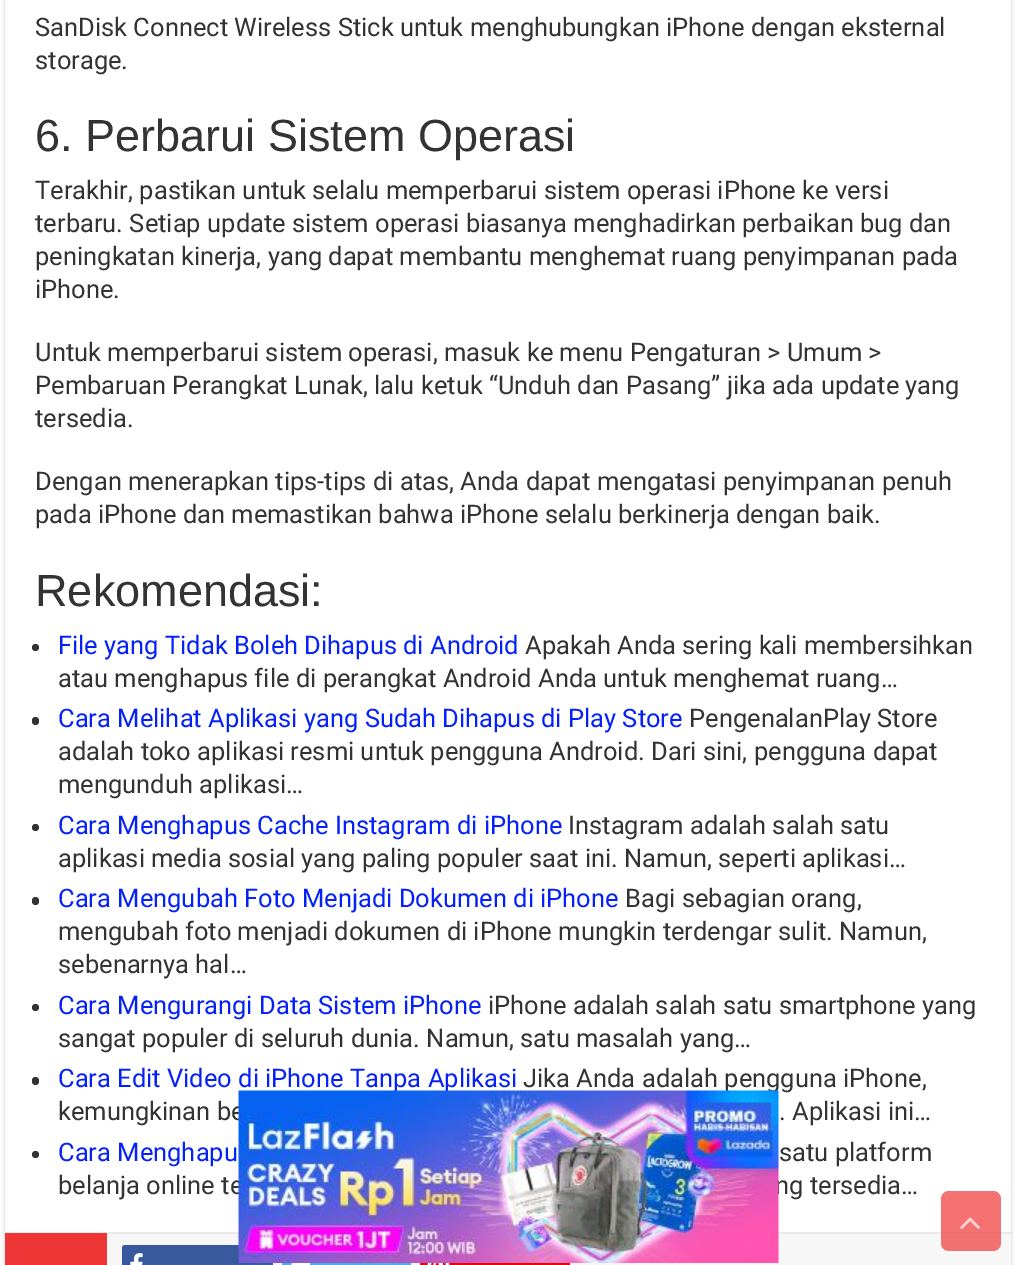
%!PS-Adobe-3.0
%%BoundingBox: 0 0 1015 1265
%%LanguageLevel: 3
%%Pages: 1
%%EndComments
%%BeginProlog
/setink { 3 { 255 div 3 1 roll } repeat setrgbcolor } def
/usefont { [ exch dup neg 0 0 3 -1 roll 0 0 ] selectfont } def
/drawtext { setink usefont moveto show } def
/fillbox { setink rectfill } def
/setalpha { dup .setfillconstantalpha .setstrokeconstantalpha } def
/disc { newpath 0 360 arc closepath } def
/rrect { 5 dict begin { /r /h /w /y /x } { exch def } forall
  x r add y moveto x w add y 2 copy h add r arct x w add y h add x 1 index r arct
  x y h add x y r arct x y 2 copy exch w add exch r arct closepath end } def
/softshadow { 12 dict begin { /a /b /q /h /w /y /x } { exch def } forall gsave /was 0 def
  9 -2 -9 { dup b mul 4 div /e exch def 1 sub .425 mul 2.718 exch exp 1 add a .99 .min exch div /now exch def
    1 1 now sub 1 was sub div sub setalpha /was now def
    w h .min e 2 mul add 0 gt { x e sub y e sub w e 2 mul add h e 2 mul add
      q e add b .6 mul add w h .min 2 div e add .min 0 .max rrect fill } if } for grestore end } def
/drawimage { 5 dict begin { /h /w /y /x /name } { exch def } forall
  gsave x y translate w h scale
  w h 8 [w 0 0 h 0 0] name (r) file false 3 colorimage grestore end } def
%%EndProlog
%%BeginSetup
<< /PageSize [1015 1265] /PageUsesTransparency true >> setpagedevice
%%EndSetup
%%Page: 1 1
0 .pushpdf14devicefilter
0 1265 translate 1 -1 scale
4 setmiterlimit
0 0 1015 1265 255 255 255 fillbox
gsave
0 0 moveto 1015 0 lineto 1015 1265 lineto 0 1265 lineto closepath 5 -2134 moveto 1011 -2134 lineto 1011 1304 lineto 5 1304 lineto closepath eoclip newpath
202 202 202 setink
5 -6 1006 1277 0 2 1 softshadow
grestore
(SanDisk Connect Wireless Stick untuk menghubungkan iPhone dengan eksternal) 35 36 /Roboto-Regular 25.5 51 51 51 drawtext
(storage.) 35 69 /Roboto-Regular 25.5 51 51 51 drawtext
(6. Perbarui Sistem Operasi) 35 151 /LiberationSans-Regular 45 51 51 51 drawtext
(Terakhir, pastikan untuk selalu memperbarui sistem operasi iPhone ke versi) 35 199 /Roboto-Regular 25.5 51 51 51 drawtext
(terbaru. Setiap update sistem operasi biasanya menghadirkan perbaikan bug dan) 35 232 /Roboto-Regular 25.5 51 51 51 drawtext
(peningkatan kinerja, yang dapat membantu menghemat ruang penyimpanan pada) 35 265 /Roboto-Regular 25.5 51 51 51 drawtext
(iPhone.) 35 298 /Roboto-Regular 25.5 51 51 51 drawtext
(Untuk memperbarui sistem operasi, masuk ke menu Pengaturan > Umum >) 35 361 /Roboto-Regular 25.5 51 51 51 drawtext
(Pembaruan Perangkat Lunak, lalu ketuk “Unduh dan Pasang” jika ada update yang) 35 394 /Roboto-Regular 25.5 51 51 51 drawtext
(tersedia.) 35 427 /Roboto-Regular 25.5 51 51 51 drawtext
(Dengan menerapkan tips-tips di atas, Anda dapat mengatasi penyimpanan penuh) 35 490 /Roboto-Regular 25.5 51 51 51 drawtext
(pada iPhone dan memastikan bahwa iPhone selalu berkinerja dengan baik.) 35 523 /Roboto-Regular 25.5 51 51 51 drawtext
(Rekomendasi:) 35 606 /LiberationSans-Regular 45 51 51 51 drawtext
35.5 647.5 3.5 disc fill
(File yang Tidak Boleh Dihapus di Android) 58 654 /Roboto-Regular 25.5 5 33 248 drawtext
(Apakah Anda sering kali membersihkan) 525 654 /Roboto-Regular 25.5 51 51 51 drawtext
(atau menghapus file di perangkat Android Anda untuk menghemat ruang…) 58 687 /Roboto-Regular 25.5 51 51 51 drawtext
32 717 7 8 3.5 rrect fill
(Cara Melihat Aplikasi yang Sudah Dihapus di Play Store) 58 727 /Roboto-Regular 25.5 5 33 248 drawtext
(PengenalanPlay Store) 689 727 /Roboto-Regular 25.5 51 51 51 drawtext
(adalah toko aplikasi resmi untuk pengguna Android. Dari sini, pengguna dapat) 58 760 /Roboto-Regular 25.5 51 51 51 drawtext
(mengunduh aplikasi…) 58 793 /Roboto-Regular 25.5 51 51 51 drawtext
35.5 827.5 3.5 disc fill
(Cara Menghapus Cache Instagram di iPhone) 58 834 /Roboto-Regular 25.5 5 33 248 drawtext
(Instagram adalah salah satu) 568 834 /Roboto-Regular 25.5 51 51 51 drawtext
(aplikasi media sosial yang paling populer saat ini. Namun, seperti aplikasi…) 58 867 /Roboto-Regular 25.5 51 51 51 drawtext
32 897 7 8 3.5 rrect fill
(Cara Mengubah Foto Menjadi Dokumen di iPhone) 58 907 /Roboto-Regular 25.5 5 33 248 drawtext
(Bagi sebagian orang,) 625 907 /Roboto-Regular 25.5 51 51 51 drawtext
(mengubah foto menjadi dokumen di iPhone mungkin terdengar sulit. Namun,) 58 940 /Roboto-Regular 25.5 51 51 51 drawtext
(sebenarnya hal…) 58 973 /Roboto-Regular 25.5 51 51 51 drawtext
35.5 1007.5 3.5 disc fill
(Cara Mengurangi Data Sistem iPhone) 58 1014 /Roboto-Regular 25.5 5 33 248 drawtext
(iPhone adalah salah satu smartphone yang) 488 1014 /Roboto-Regular 25.5 51 51 51 drawtext
(sangat populer di seluruh dunia. Namun, satu masalah yang…) 58 1047 /Roboto-Regular 25.5 51 51 51 drawtext
32 1077 7 8 3.5 rrect fill
(Cara Edit Video di iPhone Tanpa Aplikasi) 58 1087 /Roboto-Regular 25.5 5 33 248 drawtext
(Jika Anda adalah pengguna iPhone,) 523 1087 /Roboto-Regular 25.5 51 51 51 drawtext
(kemungkinan be) 58 1120 /Roboto-Regular 25.5 51 51 51 drawtext
(. Aplikasi ini…) 779 1120 /Roboto-Regular 25.5 51 51 51 drawtext
35.5 1154.5 3.5 disc fill
(Cara Menghapu) 58 1161 /Roboto-Regular 25.5 5 33 248 drawtext
(satu platform) 779 1161 /Roboto-Regular 25.5 51 51 51 drawtext
(belanja online te) 58 1194 /Roboto-Regular 25.5 51 51 51 drawtext
(ng tersedia…) 775 1194 /Roboto-Regular 25.5 51 51 51 drawtext
107 1234 904 31 247 247 247 fillbox
5 1232 1006 2 234 234 234 fillbox
5 1233 102 32 239 54 54 fillbox
57 89 159 setink
122 1245 151 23 3 rrect fill
(assets/img1.rgb) 130 1253 13 12 drawimage
282 1263 129 2 69 176 227 fillbox
(assets/img2.rgb) 291 1263 20 2 drawimage
420 1263 150 2 224 7 7 fillbox
(assets/img3.rgb) 427 1263 23 2 drawimage
(assets/img4.rgb) 238 1090 541 173 drawimage
0.7 setalpha
239 54 54 setink
941 1191 60 60 8 rrect fill
1 setalpha
(assets/img5.rgb) 960 1217 20 12 drawimage
.poppdf14devicefilter showpage
%%EOF
